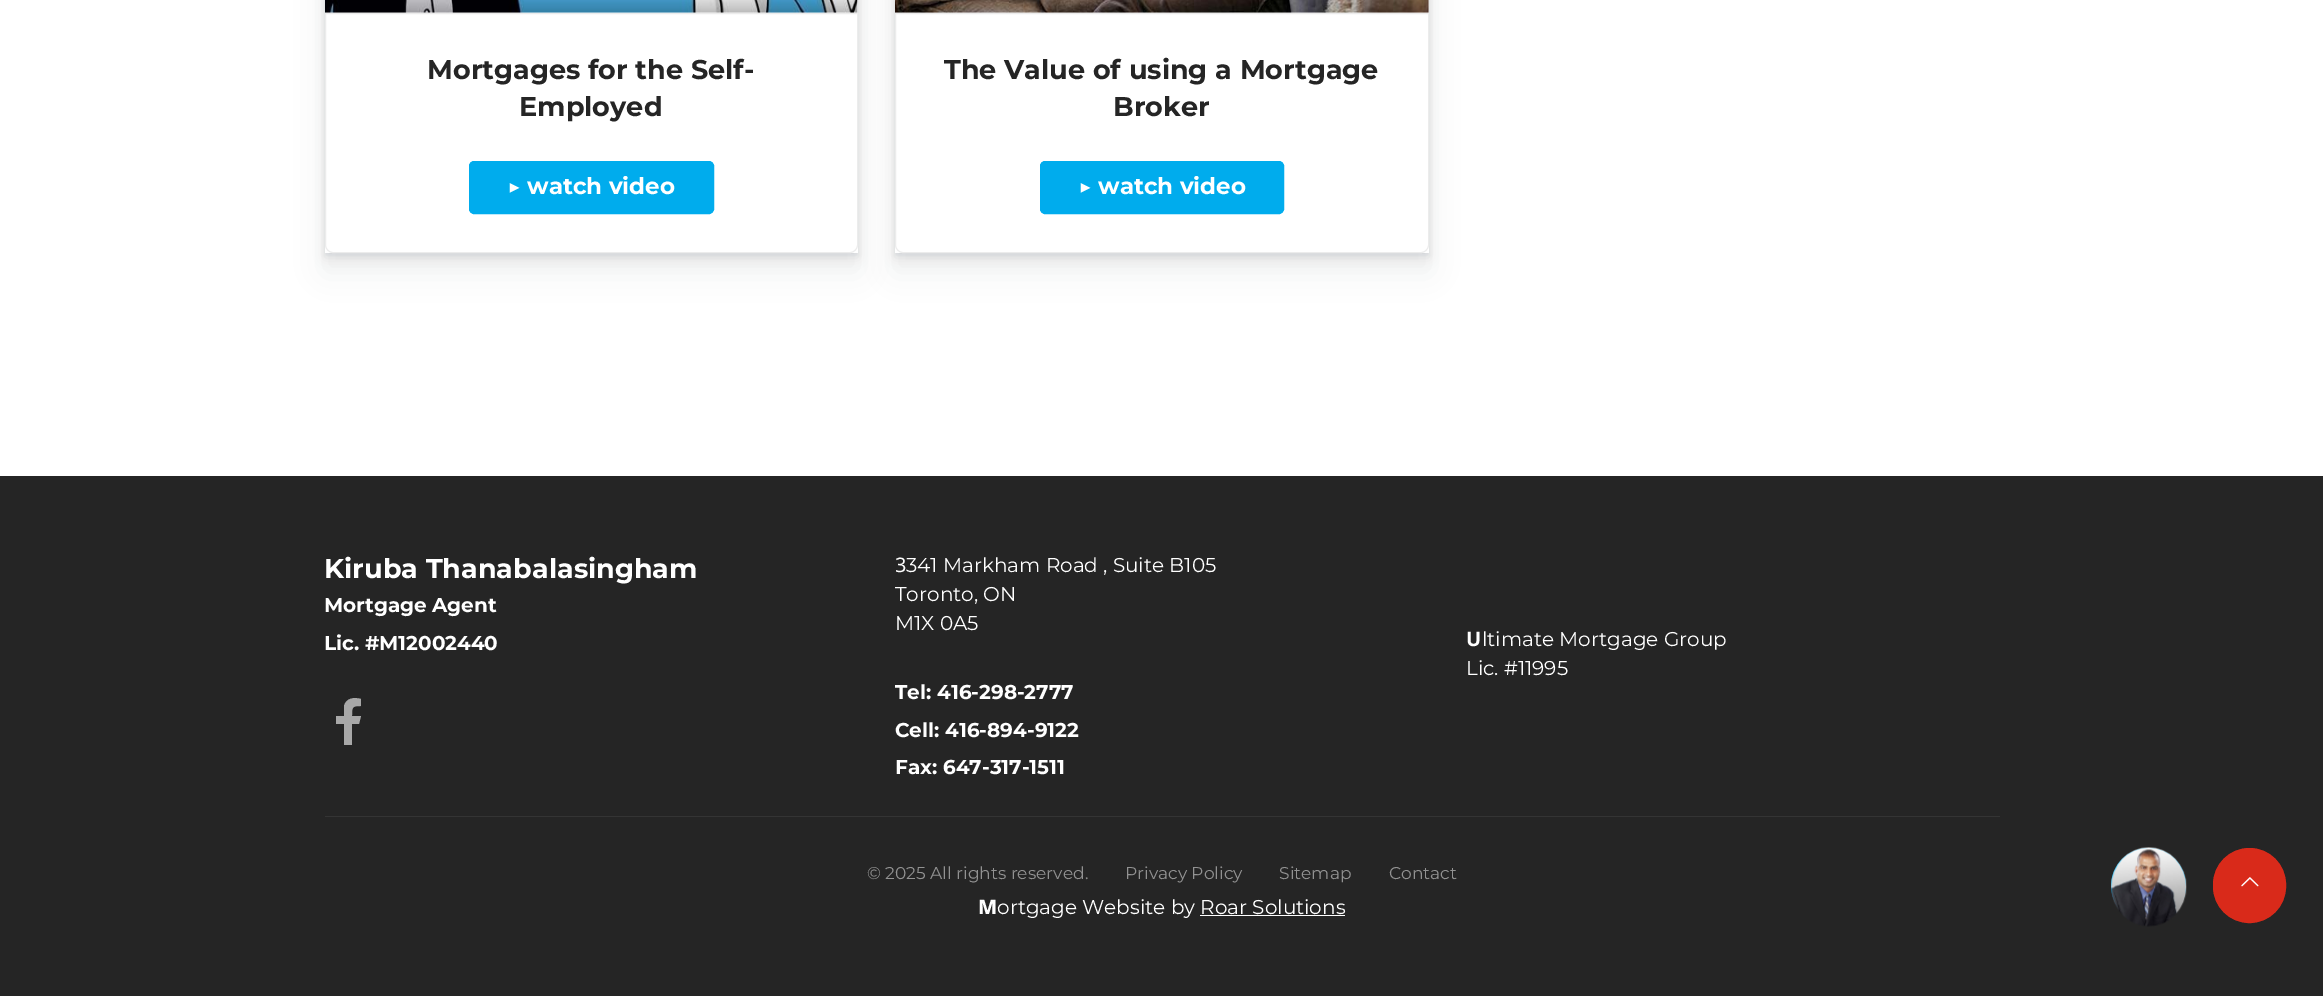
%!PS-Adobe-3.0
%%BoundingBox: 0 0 2323 996
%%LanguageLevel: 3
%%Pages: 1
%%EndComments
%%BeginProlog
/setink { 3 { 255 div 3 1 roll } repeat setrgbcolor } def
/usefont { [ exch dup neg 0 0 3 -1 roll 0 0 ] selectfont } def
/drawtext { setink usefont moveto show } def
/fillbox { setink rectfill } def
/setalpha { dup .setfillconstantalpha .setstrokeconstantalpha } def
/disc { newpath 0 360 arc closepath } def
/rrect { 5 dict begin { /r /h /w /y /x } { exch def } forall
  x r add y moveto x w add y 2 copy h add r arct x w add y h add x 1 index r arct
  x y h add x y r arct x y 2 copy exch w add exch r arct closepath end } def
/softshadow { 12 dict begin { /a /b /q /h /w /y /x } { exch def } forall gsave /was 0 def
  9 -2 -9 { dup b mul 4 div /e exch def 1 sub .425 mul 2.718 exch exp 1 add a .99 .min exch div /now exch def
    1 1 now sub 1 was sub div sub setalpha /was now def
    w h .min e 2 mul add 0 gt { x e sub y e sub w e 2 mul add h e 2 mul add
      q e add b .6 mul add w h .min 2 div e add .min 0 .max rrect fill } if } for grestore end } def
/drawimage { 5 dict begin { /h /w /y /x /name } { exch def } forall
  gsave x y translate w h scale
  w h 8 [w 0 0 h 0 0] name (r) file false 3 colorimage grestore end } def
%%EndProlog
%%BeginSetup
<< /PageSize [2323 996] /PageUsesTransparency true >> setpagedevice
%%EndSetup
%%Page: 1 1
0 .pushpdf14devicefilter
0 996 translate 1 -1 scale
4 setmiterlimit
0 0 2323 996 255 255 255 fillbox
gsave
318 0 moveto 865 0 lineto 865 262 lineto 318 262 lineto closepath 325 -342 moveto 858 -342 lineto 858 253 lineto 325 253 lineto closepath eoclip newpath
90 97 105 setink
325 -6 533 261 0 2 0.1 softshadow
grestore
gsave
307 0 moveto 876 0 lineto 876 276 lineto 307 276 lineto closepath 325 -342 moveto 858 -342 lineto 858 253 lineto 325 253 lineto closepath eoclip newpath
90 97 105 setink
325 -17 533 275 0 5.5 0.12 softshadow
grestore
gsave
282 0 moveto 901 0 lineto 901 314 lineto 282 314 lineto closepath 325 -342 moveto 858 -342 lineto 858 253 lineto 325 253 lineto closepath eoclip newpath
90 97 105 setink
325 -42 533 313 0 14 0.1 softshadow
grestore
(assets/img1.rgb) 325 0 533 13 drawimage
325.5 13.5 moveto 857.5 13.5 lineto 857.5 245 lineto 857.5 249 854 252.5 850 252.5 curveto 333 252.5 lineto 329 252.5 325.5 249 325.5 245 curveto closepath gsave fill grestore
236 236 236 setink
stroke
(Mortgages for the Self-) 427 79 /Montserrat-Bold 27.1 37 37 37 drawtext
(Employed) 519 116 /Montserrat-Bold 27.1 37 37 37 drawtext
0 172 237 setink
469.5 161.5 244 52 4.5 rrect gsave fill grestore
stroke
(▶) 507 194 /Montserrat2-Bold 23 255 255 255 drawtext
(watch video) 527 194 /Montserrat-Bold 23 255 255 255 drawtext
gsave
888 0 moveto 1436 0 lineto 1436 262 lineto 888 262 lineto closepath 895 -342 moveto 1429 -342 lineto 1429 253 lineto 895 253 lineto closepath eoclip newpath
90 97 105 setink
895 -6 534 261 0 2 0.1 softshadow
grestore
gsave
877 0 moveto 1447 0 lineto 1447 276 lineto 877 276 lineto closepath 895 -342 moveto 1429 -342 lineto 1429 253 lineto 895 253 lineto closepath eoclip newpath
90 97 105 setink
895 -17 534 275 0 5.5 0.12 softshadow
grestore
gsave
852 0 moveto 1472 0 lineto 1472 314 lineto 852 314 lineto closepath 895 -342 moveto 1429 -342 lineto 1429 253 lineto 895 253 lineto closepath eoclip newpath
90 97 105 setink
895 -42 534 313 0 14 0.1 softshadow
grestore
(assets/img2.rgb) 895 0 534 13 drawimage
895.5 13.5 moveto 1428.5 13.5 lineto 1428.5 245 lineto 1428.5 249 1425 252.5 1421 252.5 curveto 903 252.5 lineto 899 252.5 895.5 249 895.5 245 curveto closepath gsave fill grestore
236 236 236 setink
stroke
(The Value of using a Mortgage) 944 79 /Montserrat-Bold 27.1 37 37 37 drawtext
(Broker) 1113 116 /Montserrat-Bold 27.1 37 37 37 drawtext
0 172 237 setink
1040.5 161.5 243 52 4.5 rrect gsave fill grestore
stroke
(▶) 1078 194 /Montserrat2-Bold 23 255 255 255 drawtext
(watch video) 1098 194 /Montserrat-Bold 23 255 255 255 drawtext
0 476 2323 520 37 37 37 fillbox
(Kiruba Thanabalasingham) 324 578 /Montserrat-Bold 27.1 255 255 255 drawtext
(Mortgage Agent) 324 612 /Montserrat-Bold 20 255 255 255 drawtext
(Lic. #M12002440) 324 650 /Montserrat-Bold 20 255 255 255 drawtext
168 168 168 setink
352 745 moveto 352 724 lineto 359 724 lineto 361 716 lineto 352 716 lineto 352 707 352 706 361 706 curveto 361 699 lineto 354 697 346 698 344 706 curveto 344 716 lineto 336 716 lineto 336 724 lineto 344 724 lineto 344 745 lineto closepath fill
(3) 895 572 /NotoSans-Regular 20 255 255 255 drawtext
(341 Markham Road , Suite B105) 906 572 /Montserrat-Regular 20 255 255 255 drawtext
(Toronto, ON) 895 601 /Montserrat-Regular 20 255 255 255 drawtext
(M1X 0A5) 895 630 /Montserrat-Regular 20 255 255 255 drawtext
(Tel: 416-298-2777) 895 699 /Montserrat-Bold 20 255 255 255 drawtext
(Cell: 416-894-9122) 895 737 /Montserrat-Bold 20 255 255 255 drawtext
(Fax: 647-317-1511) 895 774 /Montserrat-Bold 20 255 255 255 drawtext
(U) 1466 646 /NotoSans-Bold 20 255 255 255 drawtext
(ltimate Mortgage Group) 1482 646 /Montserrat-Regular 20 255 255 255 drawtext
(Lic. #11995) 1466 675 /Montserrat-Regular 20 255 255 255 drawtext
325 816 1675 1 52 52 52 fillbox
(© 2025 All rights reserved.) 867 879 /Montserrat-Regular 17.1 146 146 146 drawtext
(Privacy Policy) 1125 879 /Montserrat-Regular 17.1 146 146 146 drawtext
(Sitemap) 1279 879 /Montserrat-Regular 17.1 146 146 146 drawtext
(Contact) 1389 879 /Montserrat-Regular 17.1 146 146 146 drawtext
(M) 978 914 /NotoSans-ExtraBold 20 255 255 255 drawtext
(ortgage Website by Roar Solutions) 997 914 /Montserrat-Regular 20 255 255 255 drawtext
1200 915 145 1 255 255 255 fillbox
0 172 237 setink
2148.5 885.5 37.5 disc fill
(assets/img3.rgb) 2111 847 76 80 drawimage
217 42 26 setink
2213.5 848.5 72 74 36 rrect gsave fill grestore
stroke
(assets/img4.rgb) 2241 877 18 10 drawimage
.poppdf14devicefilter showpage
%%EOF
